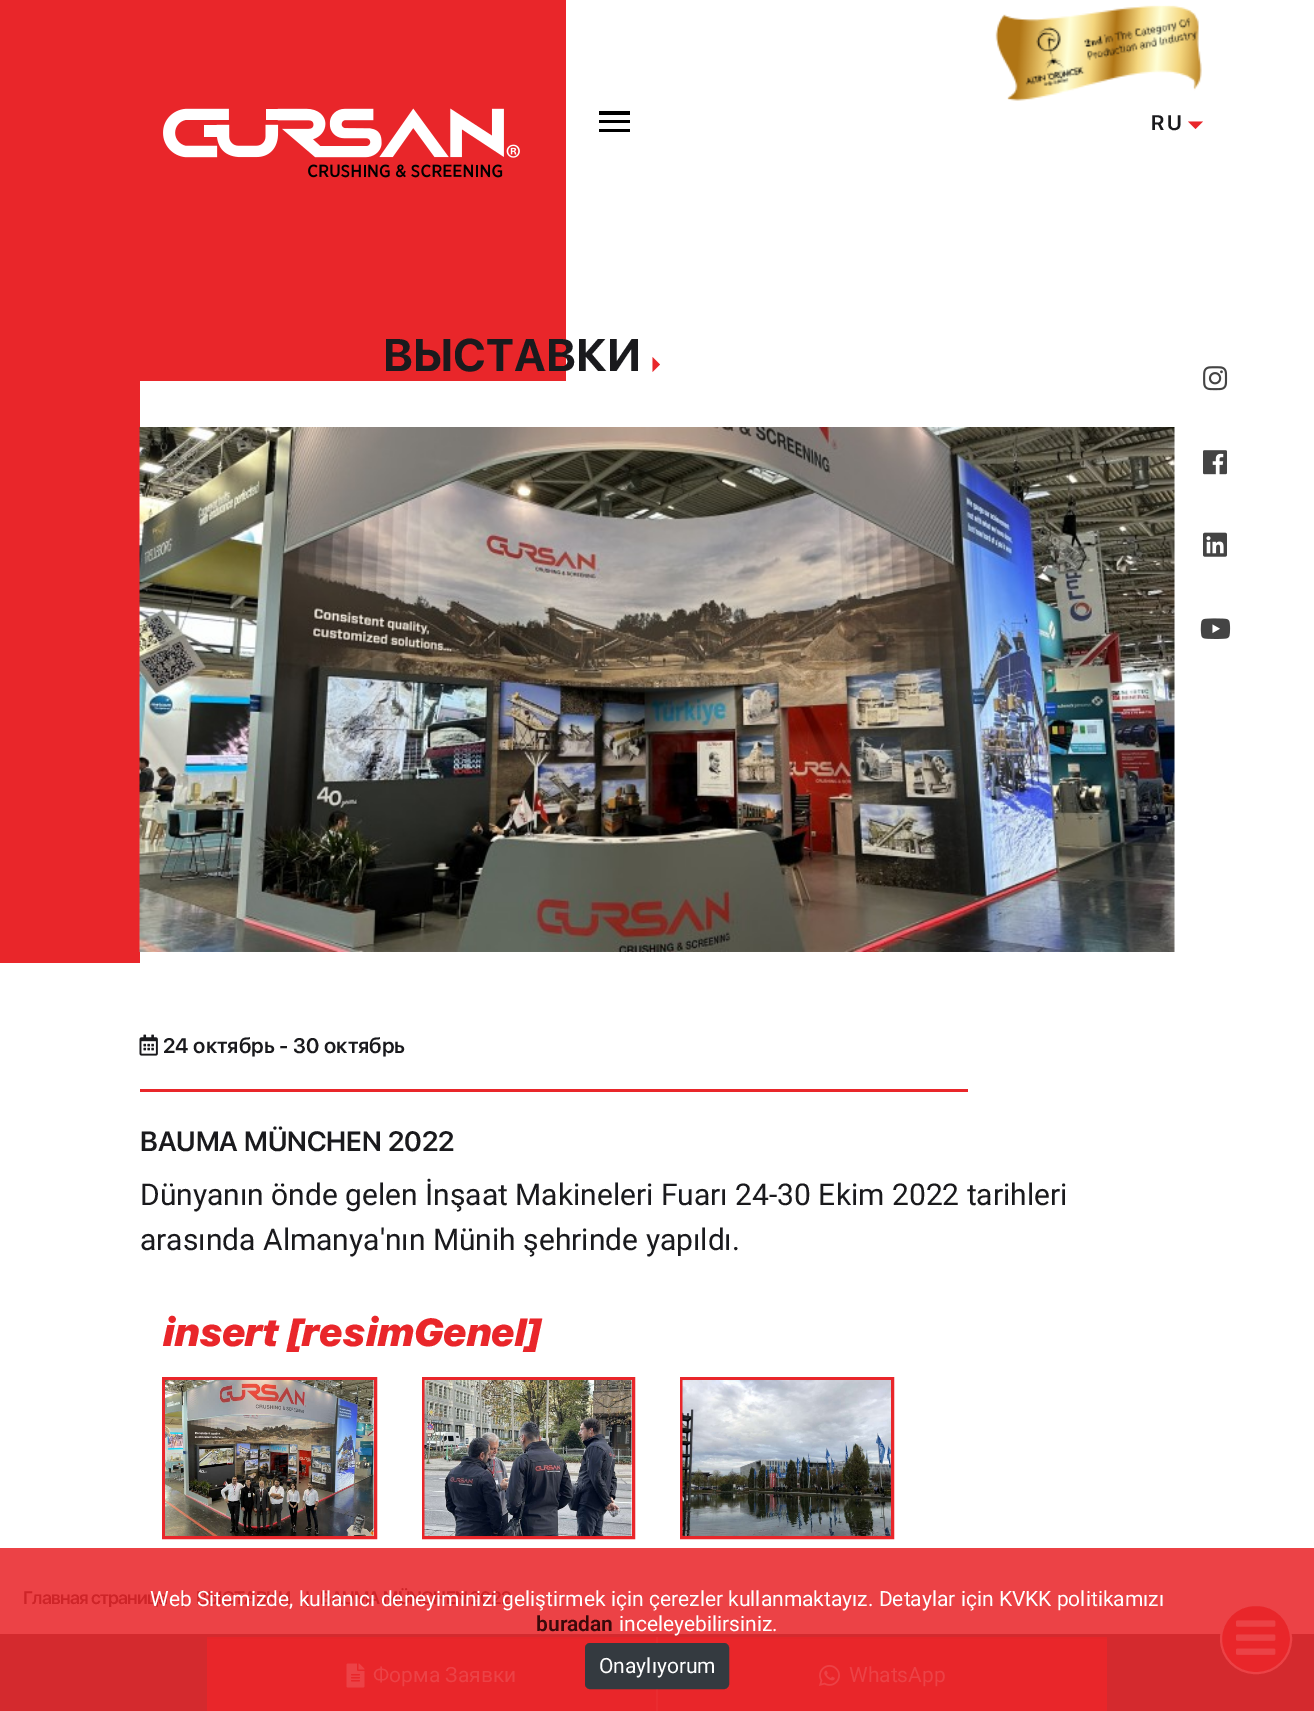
%!PS-Adobe-3.0
%%BoundingBox: 0 0 1314 1711
%%LanguageLevel: 3
%%Pages: 1
%%EndComments
%%BeginProlog
/setink { 3 { 255 div 3 1 roll } repeat setrgbcolor } def
/usefont { [ exch dup neg 0 0 3 -1 roll 0 0 ] selectfont } def
/drawtext { setink usefont moveto show } def
/fillbox { setink rectfill } def
/rrect { 5 dict begin { /r /h /w /y /x } { exch def } forall
  x r add y moveto x w add y 2 copy h add r arct x w add y h add x 1 index r arct
  x y h add x y r arct x y 2 copy exch w add exch r arct closepath end } def
/drawimage { 5 dict begin { /h /w /y /x /name } { exch def } forall
  gsave x y translate w h scale
  w h 8 [w 0 0 h 0 0] name (r) file false 3 colorimage grestore end } def
%%EndProlog
%%BeginSetup
<< /PageSize [1314 1711] >> setpagedevice
%%EndSetup
%%Page: 1 1
0 1711 translate 1 -1 scale
4 setmiterlimit
0 0 1314 1711 255 255 255 fillbox
0 1548 1314 86 236 66 70 fillbox
0 0 566 963 233 38 42 fillbox
(assets/img1.rgb) 163 108 357 70 drawimage
(assets/img2.rgb) 995 5 207 96 drawimage
599 111 31 4 0 0 0 fillbox
599 120 31 3 0 0 0 fillbox
599 129 31 3 0 0 0 fillbox
/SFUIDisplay-SemiBold 21 usefont
26 26 29 setink
1151 130 moveto 3 0 (RU) ashow
233 38 42 setink
1188 121.5 moveto 1203 121.5 lineto 1195.5 129 lineto closepath fill
(assets/img3.rgb) 1203 366 25 25 drawimage
(assets/img4.rgb) 1203 450 24 25 drawimage
(assets/img5.rgb) 1203 532 24 25 drawimage
(assets/img6.rgb) 1200 618 31 21 drawimage
(ВЫСТАВКИ) 383 371 /SFUIDisplay-Bold 45.25 26 26 29 drawtext
233 38 42 setink
652.5 372 moveto 652.5 357 lineto 660 364.5 lineto closepath fill
140 381 426 582 255 255 255 fillbox
(assets/img7.rgb) 139 427 1036 525 drawimage
140 1089 828 3 233 38 42 fillbox
(assets/img8.rgb) 139 1034 19 22 drawimage
(24 октябрь - 30 октябрь) 163 1053 /SFUIDisplay-SemiBold 21 26 26 29 drawtext
(BAUMA MÜNCHEN 2022) 140 1151 /SFUIDisplay-SemiBold 27.75 26 26 29 drawtext
(Dünyanın önde gelen İnşaat Makineleri Fuarı 24-30 Ekim 2022 tarihleri) 140 1205 /Roboto-Regular 30 26 26 29 drawtext
(arasında Almanya'nın Münih şehrinde yapıldı.) 140 1250 /Roboto-Regular 30 26 26 29 drawtext
(insert [resimGenel]) 162 1346 /SFProDisplay-Black 39 233 38 42 drawtext
3 setlinewidth
163.5 1378.5 212 159 rectstroke
(assets/img9.rgb) 165 1380 209 156 drawimage
423.5 1378.5 210 159 rectstroke
(assets/img10.rgb) 424 1380 208 156 drawimage
681.5 1378.5 211 159 rectstroke
(assets/img11.rgb) 682 1380 209 156 drawimage
0 1634 1314 77 212 42 46 fillbox
233 38 42 setink
1221 1605 70 68 34 rrect gsave fill grestore
236 66 70 setink
2 setlinewidth
stroke
(assets/img12.rgb) 1236 1620 40 35 drawimage
207 1639 900 72 233 38 42 fillbox
656 1637 2 74 234 44 48 fillbox
207 1637 900 2 230 37 41 fillbox
656 1637 2 2 231 43 47 fillbox
(assets/img13.rgb) 346 1663 19 25 drawimage
(Форма Заявки) 373 1682 /Roboto-Regular 21 236 66 70 drawtext
(assets/img14.rgb) 819 1665 21 21 drawimage
(WhatsApp) 849 1682 /Roboto-Regular 21 236 66 70 drawtext
/SFUIDisplay-SemiBold 18 usefont
206 36 40 setink
23 1604 moveto -0.75 0 (Главная страница) ashow
181 1604 moveto -0.75 0 (|) ashow
196 1604 moveto -0.75 0 (ВЫСТАВКИ) ashow
305 1604 moveto -0.75 0 (|) ashow
320 1604 moveto -0.75 0 (BAUMA MÜNCHEN 2022) ashow
(Web Sitemizde, kullanıcı deneyiminizi geliştirmek için çerezler kullanmaktayız. Detaylar için KVKK politikamızı) 150 1606 /Roboto-Regular 21 255 255 255 drawtext
(buradan) 536 1631 /Roboto-SemiBold 21 58 9 10 drawtext
(inceleyebilirsiniz.) 619 1631 /Roboto-Regular 21 255 255 255 drawtext
52 58 64 setink
586 1644 142 44 4 rrect gsave fill grestore
stroke
(Onaylıyorum) 599 1673 /Roboto-Regular 21 255 255 255 drawtext
showpage
%%EOF
